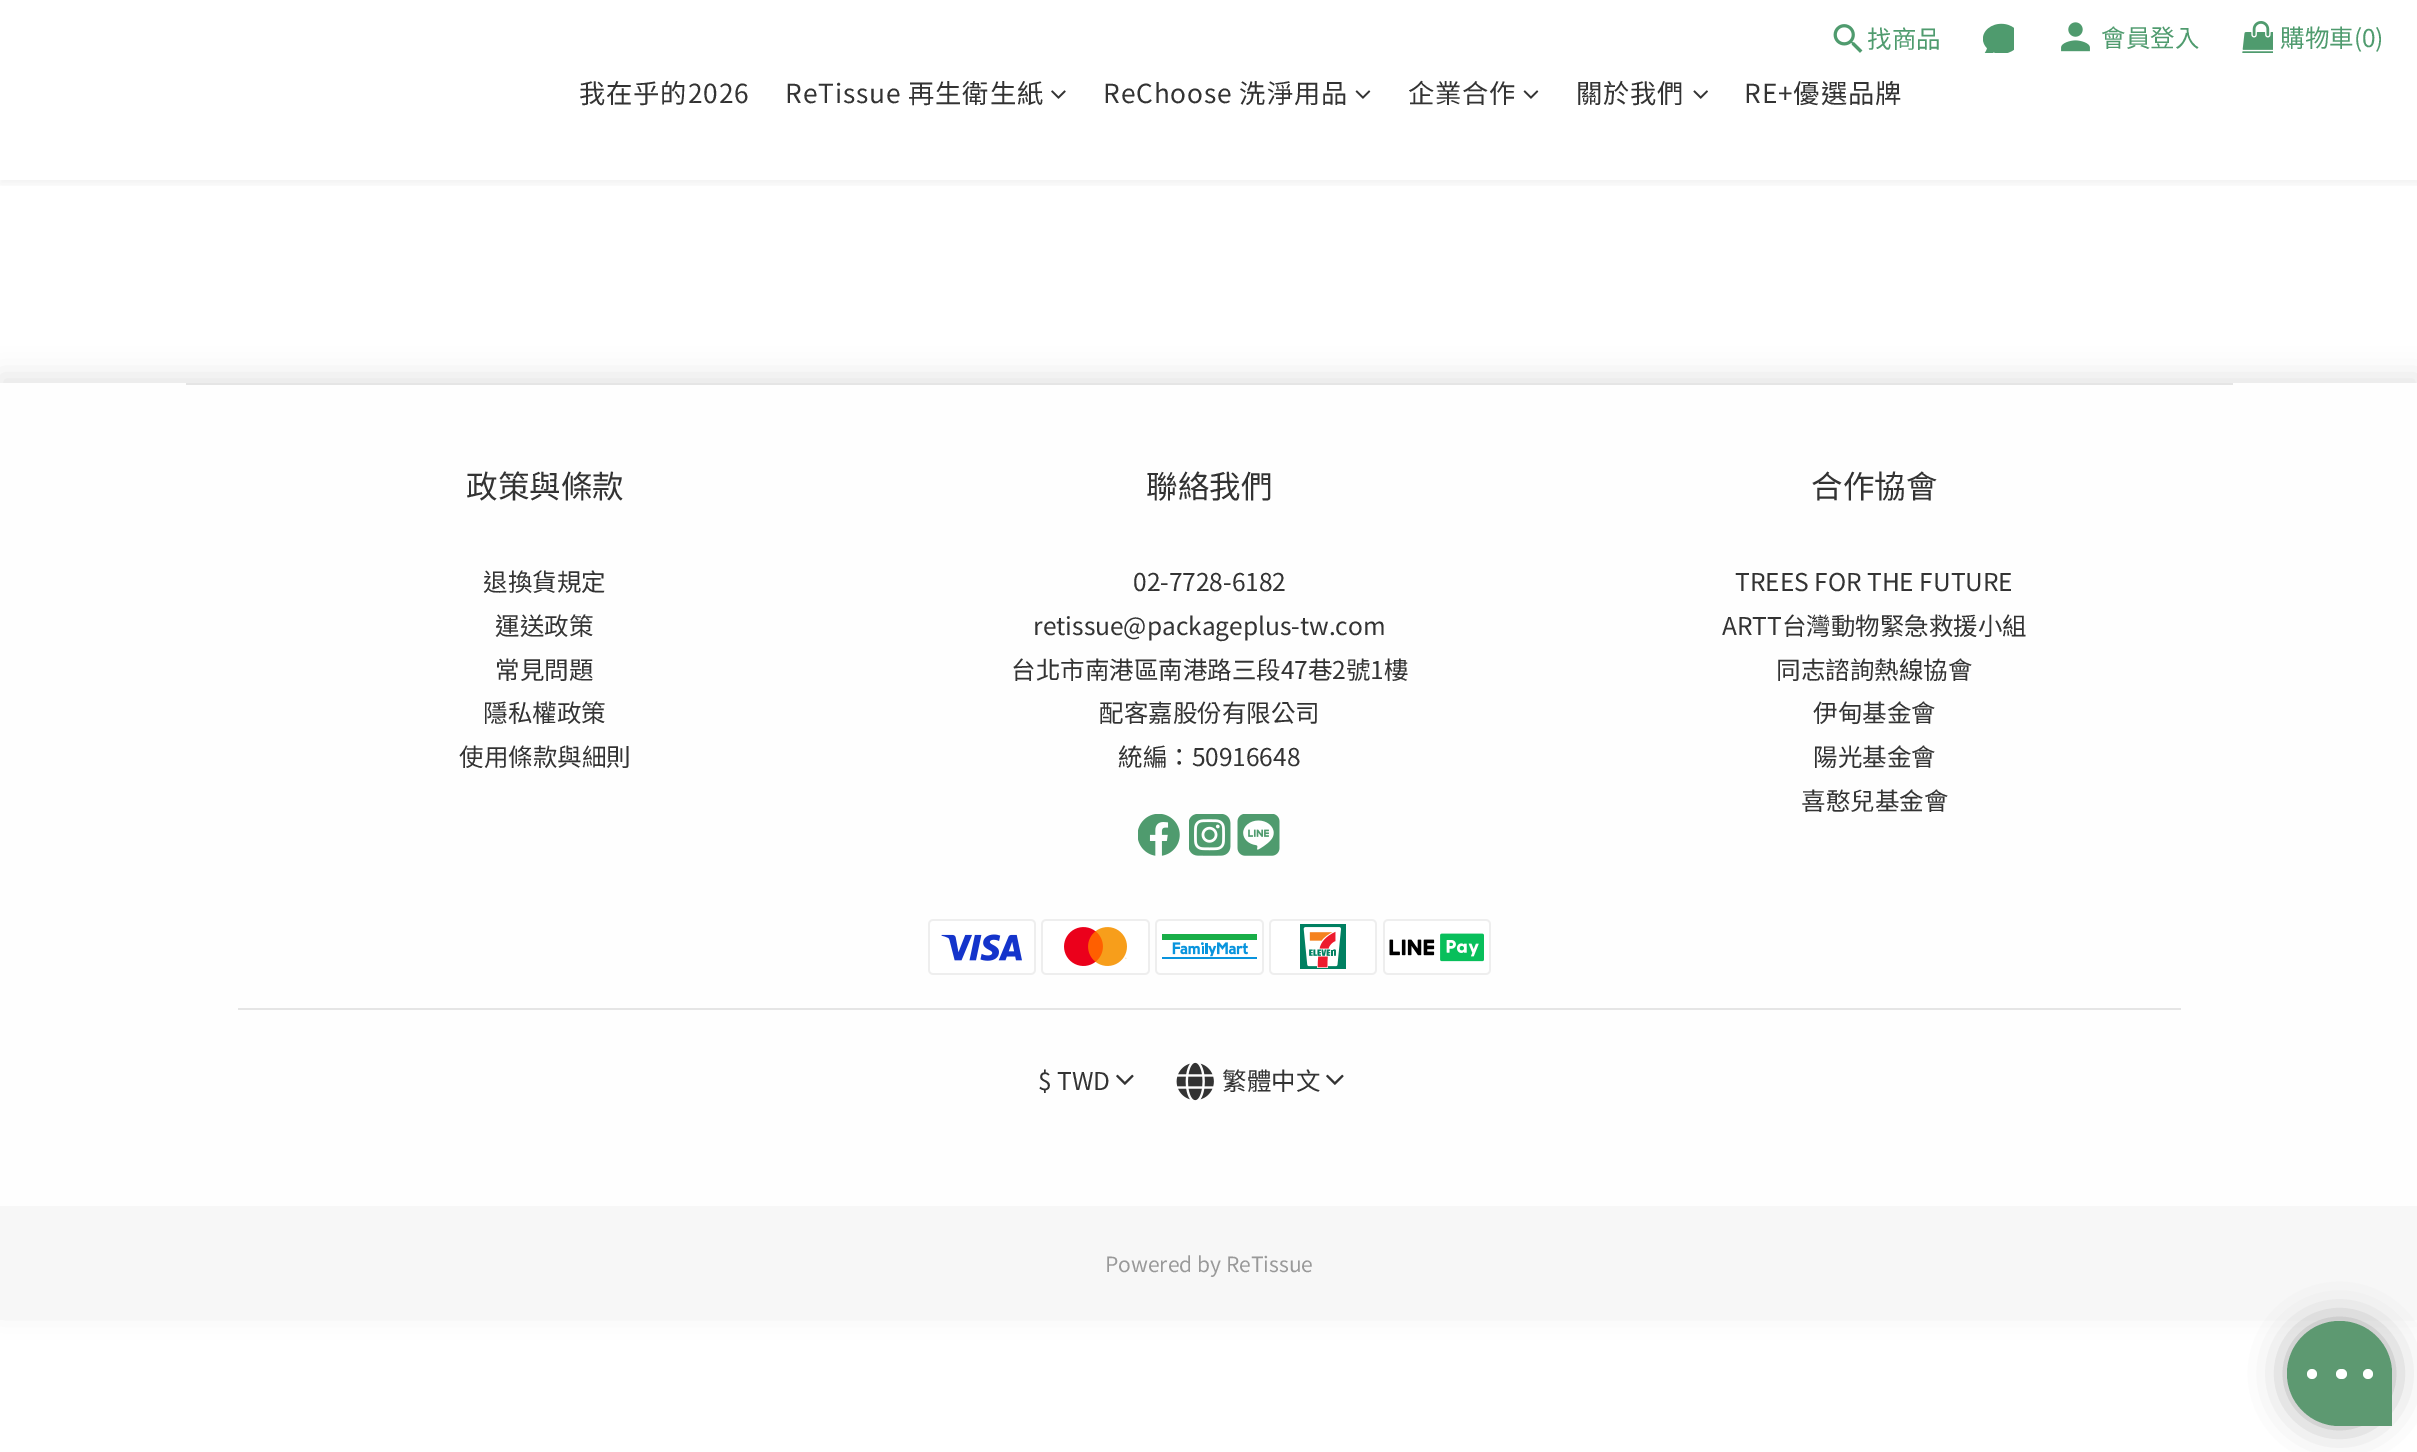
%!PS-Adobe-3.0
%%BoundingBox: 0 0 2417 1452
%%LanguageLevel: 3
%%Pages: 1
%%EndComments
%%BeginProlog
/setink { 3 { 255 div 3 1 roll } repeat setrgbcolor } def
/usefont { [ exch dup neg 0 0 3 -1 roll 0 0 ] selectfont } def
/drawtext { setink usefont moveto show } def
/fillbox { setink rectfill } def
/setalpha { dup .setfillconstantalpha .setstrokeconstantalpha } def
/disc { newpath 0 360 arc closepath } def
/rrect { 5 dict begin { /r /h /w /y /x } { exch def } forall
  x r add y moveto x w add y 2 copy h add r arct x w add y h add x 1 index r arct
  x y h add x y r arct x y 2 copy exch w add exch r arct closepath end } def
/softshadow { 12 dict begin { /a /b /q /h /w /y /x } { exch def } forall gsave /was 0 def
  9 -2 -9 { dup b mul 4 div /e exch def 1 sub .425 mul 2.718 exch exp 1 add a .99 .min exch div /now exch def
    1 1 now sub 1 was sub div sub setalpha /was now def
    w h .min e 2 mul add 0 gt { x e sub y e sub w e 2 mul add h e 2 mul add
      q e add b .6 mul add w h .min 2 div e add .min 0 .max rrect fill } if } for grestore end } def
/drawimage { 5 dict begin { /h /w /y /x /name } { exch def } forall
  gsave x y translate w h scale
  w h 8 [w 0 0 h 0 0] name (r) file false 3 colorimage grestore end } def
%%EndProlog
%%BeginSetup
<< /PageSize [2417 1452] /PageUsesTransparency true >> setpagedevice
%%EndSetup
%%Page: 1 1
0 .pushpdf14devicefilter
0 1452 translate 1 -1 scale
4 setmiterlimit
0 0 2417 1452 255 255 255 fillbox
gsave
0 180 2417 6 rectclip
0 0 0 setink
0 4 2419 180 0 5 0.06 softshadow
grestore
(assets/img1.rgb) 1833 24 30 29 drawimage
(找商品) 1867 48 /NotoSansTC-Regular 24.5 79 155 110 drawtext
(assets/img2.rgb) 1983 23 31 30 drawimage
(assets/img3.rgb) 2061 22 29 30 drawimage
(會員登入) 2101 47 /NotoSansTC-Regular 24.5 79 155 110 drawtext
(assets/img4.rgb) 2242 21 31 32 drawimage
(購物車\(0\)) 2280 47 /NotoSansTC-Regular 24.5 79 155 110 drawtext
/NotoSansTC-Regular 26.25 usefont
51 51 51 setink
579 103 moveto 0.9 0 (我在乎的2026) ashow
785 103 moveto 0.9 0 (ReTissue 再生衛生紙) ashow
(assets/img5.rgb) 1051 90 15 9 drawimage
1103 103 moveto 0.9 0 (ReChoose 洗淨用品) ashow
(assets/img6.rgb) 1355 90 16 9 drawimage
1408 103 moveto 0.9 0 (企業合作) ashow
(assets/img6.rgb) 1523 90 16 9 drawimage
1576 103 moveto 0.9 0 (關於我們) ashow
(assets/img7.rgb) 1693 90 15 9 drawimage
1744 103 moveto 0.9 0 (RE+優選品牌) ashow
0 0 0 setink
0 375 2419 936 0 13 0.1 softshadow
0 383 2417 823 254 254 254 fillbox
186 383 2047 2 229 229 229 fillbox
(政策與條款) 466 498 /NotoSansTC-Regular 31.5 51 51 51 drawtext
(退換貨規定) 483 591 /NotoSansTC-Regular 24.5 51 51 51 drawtext
(運送政策) 495 635 /NotoSansTC-Regular 24.5 51 51 51 drawtext
(常見問題) 495 679 /NotoSansTC-Regular 24.5 51 51 51 drawtext
(隱私權政策) 483 722 /NotoSansTC-Regular 24.5 51 51 51 drawtext
(使用條款與細則) 459 766 /NotoSansTC-Regular 24.5 51 51 51 drawtext
(聯絡我們) 1146 498 /NotoSansTC-Regular 31.5 51 51 51 drawtext
(02-7728-6182) 1133 591 /NotoSansTC-Regular 24.5 51 51 51 drawtext
(retissue@packageplus-tw.com) 1033 635 /NotoSansTC-Regular 24.5 51 51 51 drawtext
(台北市南港區南港路三段47巷2號1樓) 1011 679 /NotoSansTC-Regular 24.5 51 51 51 drawtext
(配客嘉股份有限公司) 1099 722 /NotoSansTC-Regular 24.5 51 51 51 drawtext
(統編：50916648) 1118 766 /NotoSansTC-Regular 24.5 51 51 51 drawtext
(assets/img8.rgb) 1138 814 42 42 drawimage
(assets/img9.rgb) 1189 814 42 42 drawimage
(assets/img10.rgb) 1237 814 43 42 drawimage
(合作協會) 1811 498 /NotoSansTC-Regular 31.5 51 51 51 drawtext
(TREES FOR THE FUTURE) 1735 591 /NotoSansTC-Regular 24.5 51 51 51 drawtext
(ARTT台灣動物緊急救援小組) 1722 635 /NotoSansTC-Regular 24.5 51 51 51 drawtext
(同志諮詢熱線協會) 1776 679 /NotoSansTC-Regular 24.5 51 51 51 drawtext
(伊甸基金會) 1813 722 /NotoSansTC-Regular 24.5 51 51 51 drawtext
(陽光基金會) 1813 766 /NotoSansTC-Regular 24.5 51 51 51 drawtext
(喜憨兒基金會) 1801 810 /NotoSansTC-Regular 24.5 51 51 51 drawtext
(assets/img11.rgb) 928 919 108 56 drawimage
(assets/img12.rgb) 1041 919 109 56 drawimage
(assets/img13.rgb) 1155 919 109 56 drawimage
(assets/img14.rgb) 1269 919 108 56 drawimage
(assets/img15.rgb) 1383 919 108 56 drawimage
238 1008 1943 2 229 229 229 fillbox
($ TWD) 1038 1090 /NotoSansTC-Regular 24.5 51 51 51 drawtext
(assets/img16.rgb) 1116 1074 18 11 drawimage
(assets/img17.rgb) 1176 1062 38 39 drawimage
(繁體中文) 1222 1090 /NotoSansTC-Regular 24.5 51 51 51 drawtext
(assets/img16.rgb) 1326 1074 18 11 drawimage
0 1206 2417 114 247 247 247 fillbox
(Powered by ReTissue) 1105 1272 /NotoSansTC-Regular 21 153 153 153 drawtext
119 119 119 setink
2287 1321 105 105 52.5 17.5 0.64 softshadow
93 153 113 setink
2339.5 1321 moveto 2368.5 1321 2392 1344.5 2392 1373.5 curveto 2392 1426 lineto 2339.5 1426 lineto 2310.5 1426 2287 1402.5 2287 1373.5 curveto 2287 1344.5 2310.5 1321 2339.5 1321 curveto closepath fill
255 255 255 setink
2312 1374 5 disc fill
2336 1369 11 10 5 rrect fill
2368 1374 5 disc fill
.poppdf14devicefilter showpage
%%EOF
